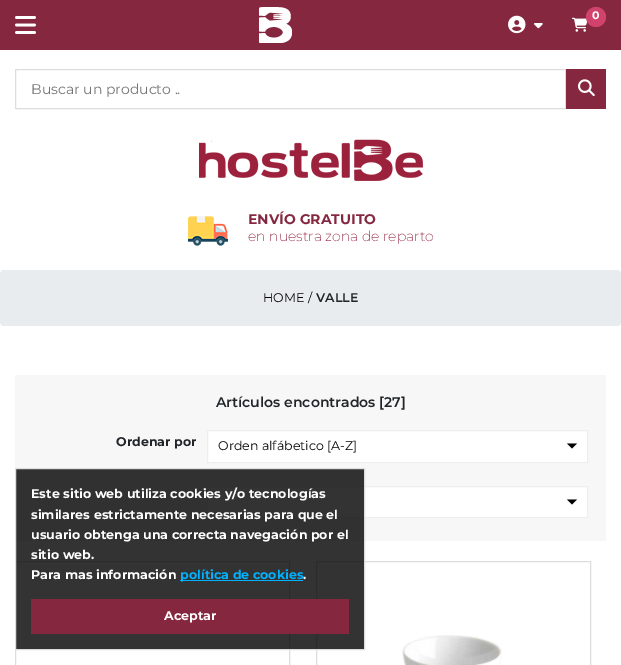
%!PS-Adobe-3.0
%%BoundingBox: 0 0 621 665
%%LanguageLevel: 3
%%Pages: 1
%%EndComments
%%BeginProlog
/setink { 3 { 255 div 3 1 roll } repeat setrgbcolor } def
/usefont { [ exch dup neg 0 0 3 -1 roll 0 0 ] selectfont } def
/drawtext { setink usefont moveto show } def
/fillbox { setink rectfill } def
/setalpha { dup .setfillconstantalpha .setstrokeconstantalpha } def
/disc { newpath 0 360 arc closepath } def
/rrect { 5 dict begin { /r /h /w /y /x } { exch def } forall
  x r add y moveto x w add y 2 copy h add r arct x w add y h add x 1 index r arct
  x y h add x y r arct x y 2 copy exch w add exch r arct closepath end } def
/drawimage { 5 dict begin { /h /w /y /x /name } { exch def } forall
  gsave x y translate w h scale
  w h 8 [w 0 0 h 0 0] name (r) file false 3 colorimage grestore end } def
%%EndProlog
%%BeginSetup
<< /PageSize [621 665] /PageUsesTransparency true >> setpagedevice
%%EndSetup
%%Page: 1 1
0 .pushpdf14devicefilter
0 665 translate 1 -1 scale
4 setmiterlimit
0 0 621 665 255 255 255 fillbox
0 0 621 50 133 40 63 fillbox
(assets/img1.rgb) 15 16 21 18 drawimage
(assets/img2.rgb) 259 7 33 36 drawimage
(assets/img3.rgb) 508 15 18 19 drawimage
(assets/img4.rgb) 534 23 9 6 drawimage
(assets/img5.rgb) 572 17 16 15 drawimage
209 67 108 setink
596 17 10 disc fill
(0) 592 19 /Montserrat-Bold 11 255 255 255 drawtext
221 221 221 setink
15.5 69.5 550 39 rectstroke
(Buscar un producto ..) 31 94 /Montserrat-Regular 14 117 117 117 drawtext
566 69 40 40 133 40 63 fillbox
(assets/img6.rgb) 578 79 17 18 drawimage
(assets/img7.rgb) 199 139 224 42 drawimage
(assets/img8.rgb) 188 216 40 30 drawimage
(ENVÍO GRATUITO) 248 224 /Montserrat-Bold 14 133 40 63 drawtext
(en nuestra zona de reparto) 248 241 /Montserrat-ExtraLight 14 134 9 39 drawtext
233 236 239 setink
0 270 621 56 4 rrect fill
(HOME) 263 302 /Montserrat-Regular 12.6 0 0 0 drawtext
(/) 308 302 /Montserrat-Regular 12.6 0 0 0 drawtext
(VALLE) 316 302 /Montserrat-SemiBold 12.6 33 37 41 drawtext
15 375 591 166 247 247 247 fillbox
(Artículos encontrados [27]) 216 407 /Montserrat-SemiBold 14 33 37 41 drawtext
(Ordenar por) 116 446 /Montserrat-Bold 12.6 33 37 41 drawtext
255 255 255 setink
207.5 430.5 moveto 587.5 430.5 lineto 587.5 462.5 lineto 207.5 462.5 lineto closepath gsave fill grestore
238 238 238 setink
stroke
(Orden alfábetico [A-Z]) 218 450 /Montserrat-Regular 12.6 0 0 0 drawtext
567 443.5 moveto 577 443.5 lineto 572 448.5 lineto closepath fill
255 255 255 setink
207.5 486.5 moveto 587.5 486.5 lineto 587.5 517.5 lineto 207.5 517.5 lineto closepath gsave fill grestore
238 238 238 setink
stroke
0 0 0 setink
567 499.5 moveto 577 499.5 lineto 572 504.5 lineto closepath fill
221 221 221 setink
15.5 561.5 274 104 rectstroke
316.5 561.5 274 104 rectstroke
(assets/img9.rgb) 402 635 100 30 drawimage
0.8 setalpha
0 0 0 setink
15.5 468.5 moveto 364.5 468.5 lineto 364.5 649.5 lineto 15.5 649.5 lineto closepath fill
1 setalpha
221 221 221 setink
15.5 468.5 moveto 364.5 468.5 lineto 364.5 649.5 lineto 15.5 649.5 lineto closepath stroke
(Este sitio web utiliza cookies y/o tecnologías) 31 498 /Montserrat-Bold 12.6 255 255 255 drawtext
(similares estrictamente necesarias para que el) 31 519 /Montserrat-Bold 12.6 255 255 255 drawtext
(usuario obtenga una correcta navegación por el) 31 539 /Montserrat-Bold 12.6 255 255 255 drawtext
(sitio web.) 31 559 /Montserrat-Bold 12.6 255 255 255 drawtext
(Para mas información) 31 579 /Montserrat-Bold 12.6 255 255 255 drawtext
180 580 123 1 0 178 255 fillbox
(política de cookies) 180 579 /Montserrat-Bold 12.6 0 178 255 drawtext
(.) 303 579 /Montserrat-Bold 12.6 255 255 255 drawtext
31 599 318 35 133 40 63 fillbox
(Aceptar) 164 620 /Montserrat-Bold 12.6 255 255 255 drawtext
.poppdf14devicefilter showpage
%%EOF
